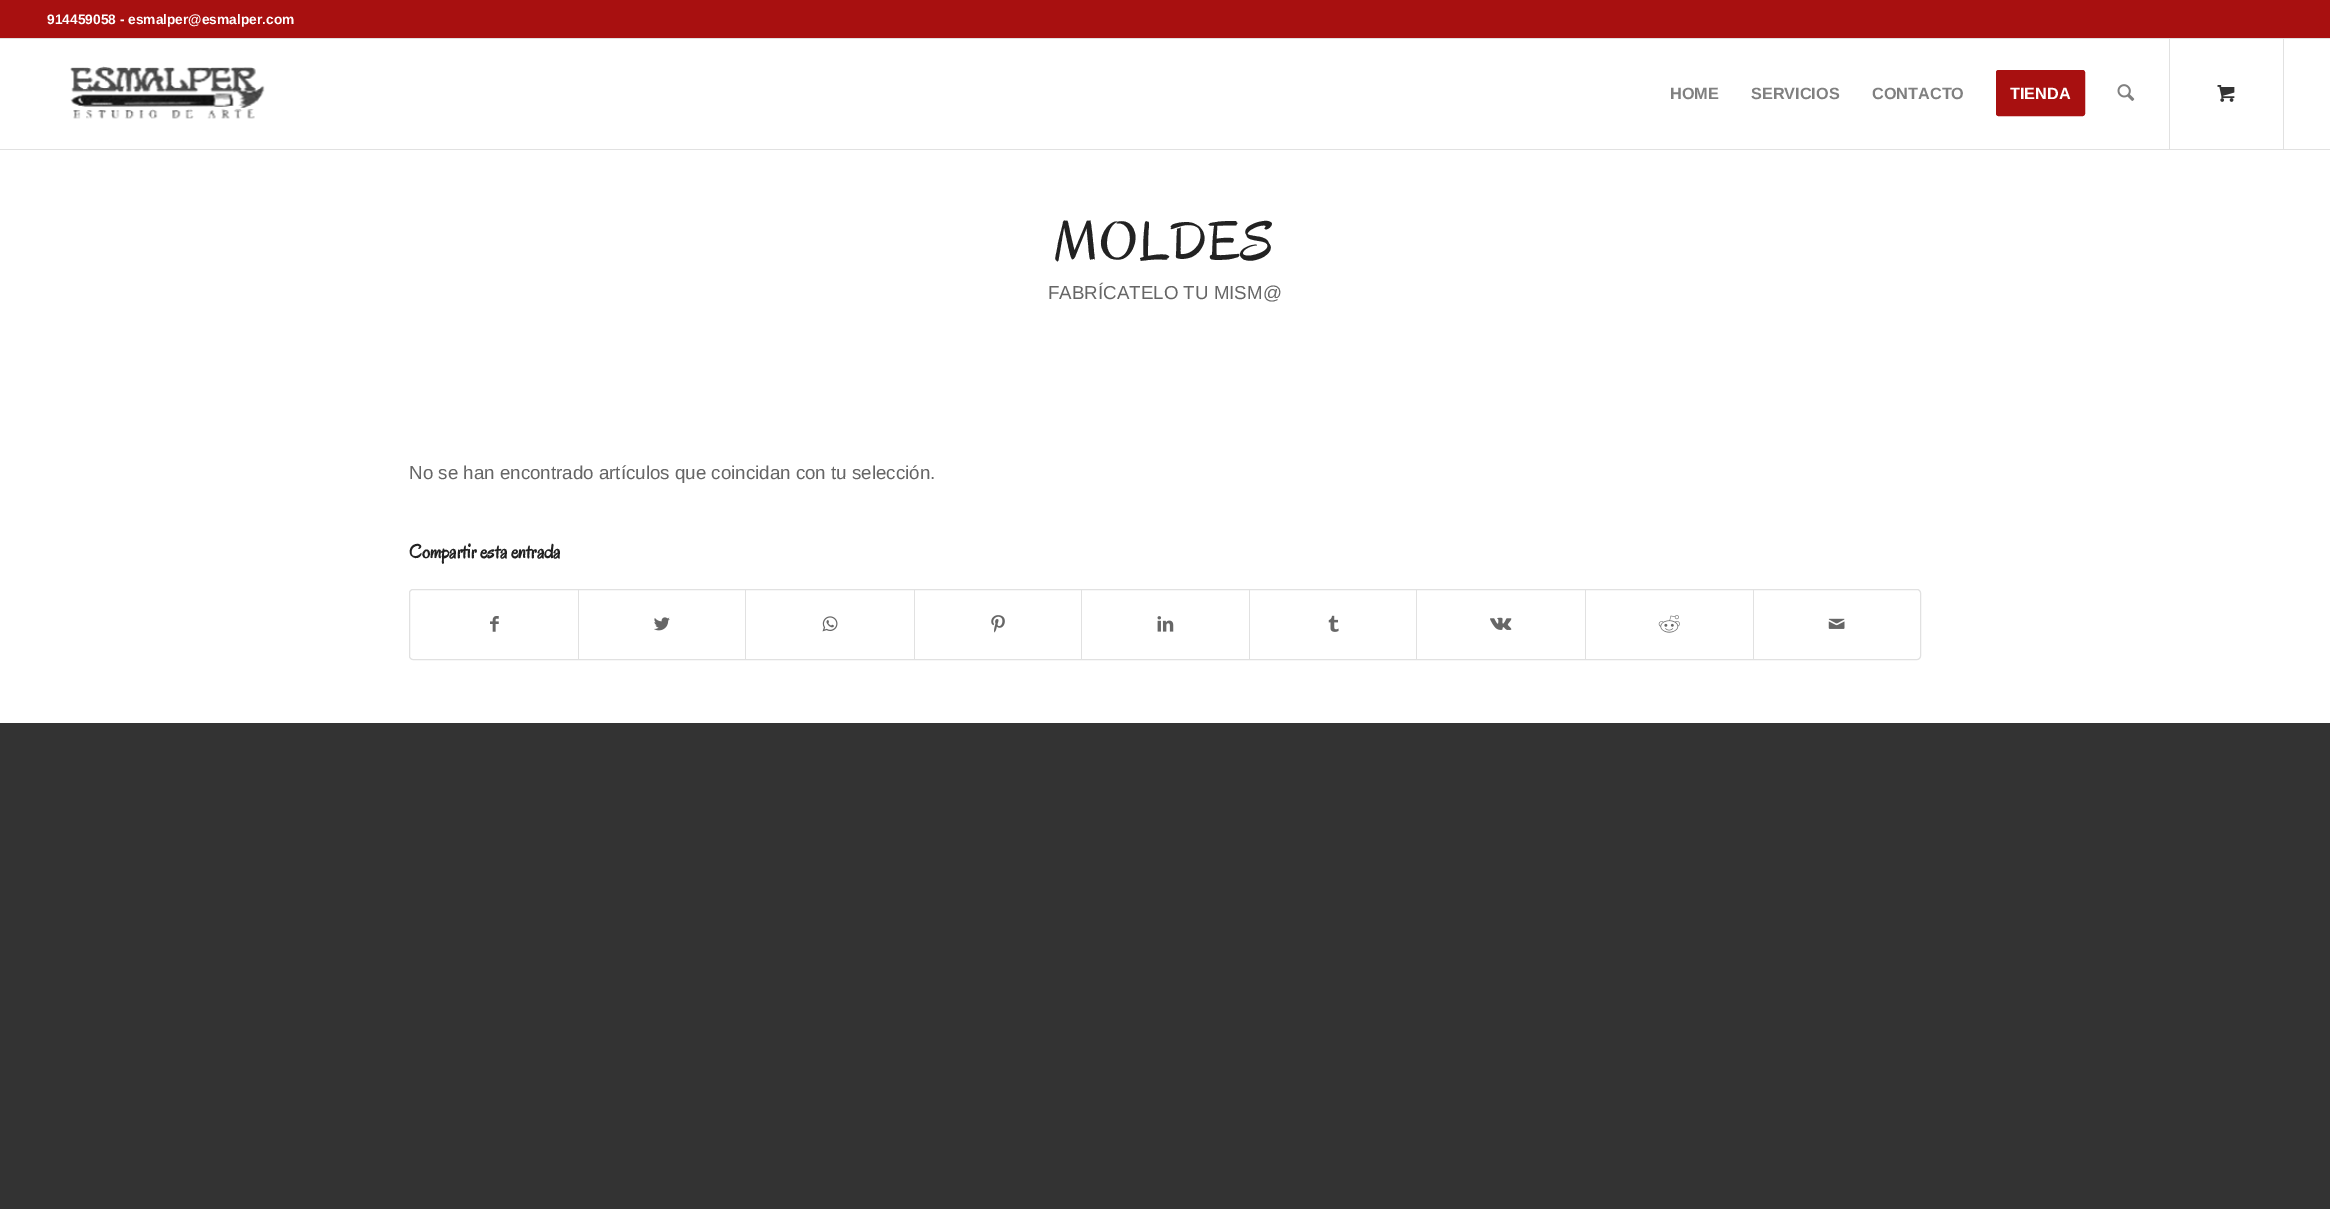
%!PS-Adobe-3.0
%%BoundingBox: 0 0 2330 1209
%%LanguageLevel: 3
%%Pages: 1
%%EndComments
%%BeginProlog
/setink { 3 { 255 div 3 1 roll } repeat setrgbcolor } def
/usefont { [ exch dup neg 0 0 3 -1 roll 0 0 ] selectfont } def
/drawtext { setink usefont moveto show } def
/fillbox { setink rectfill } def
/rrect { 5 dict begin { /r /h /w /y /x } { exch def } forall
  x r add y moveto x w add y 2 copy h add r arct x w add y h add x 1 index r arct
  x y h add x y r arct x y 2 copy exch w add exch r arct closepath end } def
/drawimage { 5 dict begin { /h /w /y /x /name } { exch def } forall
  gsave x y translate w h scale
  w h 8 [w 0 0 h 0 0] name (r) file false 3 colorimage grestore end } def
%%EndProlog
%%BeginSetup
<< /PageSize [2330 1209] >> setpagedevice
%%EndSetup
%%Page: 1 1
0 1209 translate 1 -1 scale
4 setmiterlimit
0 0 2330 1209 51 51 51 fillbox
0 150 2330 573 255 255 255 fillbox
0 39 2330 110 255 255 255 fillbox
0 0 2330 38 168 16 16 fillbox
0 38 2330 1 225 225 225 fillbox
(914459058 - esmalper@esmalper.com) 47 24 /LiberationSans-Bold 13.75 255 255 255 drawtext
0 149 2330 1 225 225 225 fillbox
(assets/img1.rgb) 70 66 195 53 drawimage
(HOME) 1670 99 /LiberationSans-Bold 16.25 128 128 128 drawtext
(SERVICIOS) 1751 99 /LiberationSans-Bold 16.25 128 128 128 drawtext
(CONTACTO) 1872 99 /LiberationSans-Bold 16.25 128 128 128 drawtext
168 16 16 setink
1997.5 71.5 86 43 1 rrect gsave fill grestore
3 setlinewidth
stroke
(TIENDA) 2010 99 /LiberationSans-Bold 16.25 255 255 255 drawtext
(assets/img2.rgb) 2117 84 18 17 drawimage
2283 39 1 110 225 225 225 fillbox
2169 39 1 110 225 225 225 fillbox
(assets/img3.rgb) 2217 85 18 17 drawimage
/Oregano-Regular 56 usefont
34 34 34 setink
1054 260 moveto 1.25 0 (MOLDES) ashow
(FABRÍCATELO TU MISM@) 1048 299 /LiberationSans-Regular 18.75 102 102 102 drawtext
(No se han encontrado artículos que coincidan con tu selección.) 409 479 /LiberationSans-Regular 18.75 102 102 102 drawtext
(Compartir esta entrada) 409 558 /Oregano-Bold 20 34 34 34 drawtext
225 225 225 setink
1 setlinewidth
409.5 589.5 1511 70 3.5 rrect stroke
(assets/img4.rgb) 490 616 9 16 drawimage
578 590 1 69 225 225 225 fillbox
(assets/img5.rgb) 654 617 16 14 drawimage
745 590 1 69 225 225 225 fillbox
(assets/img6.rgb) 822 616 16 16 drawimage
914 590 1 69 225 225 225 fillbox
(assets/img7.rgb) 991 615 14 18 drawimage
1081 590 1 69 225 225 225 fillbox
(assets/img8.rgb) 1157 616 17 16 drawimage
1249 590 1 69 225 225 225 fillbox
(assets/img9.rgb) 1328 615 11 17 drawimage
1416 590 1 69 225 225 225 fillbox
(assets/img10.rgb) 1490 617 22 13 drawimage
1585 590 1 69 225 225 225 fillbox
(assets/img11.rgb) 1658 615 22 18 drawimage
1753 590 1 69 225 225 225 fillbox
(assets/img12.rgb) 1828 618 17 11 drawimage
showpage
%%EOF
